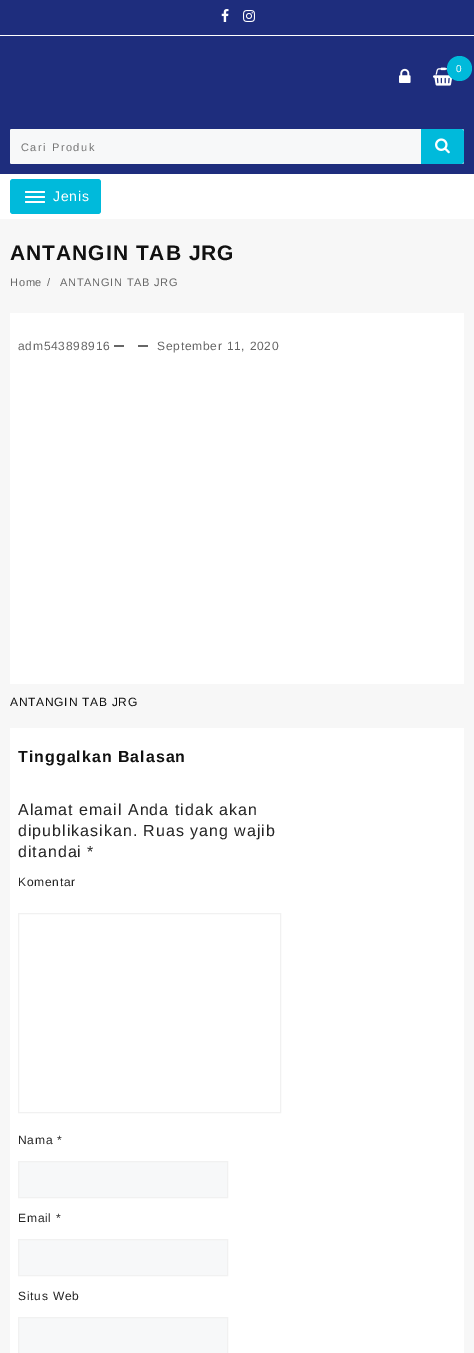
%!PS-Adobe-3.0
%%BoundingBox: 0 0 474 1353
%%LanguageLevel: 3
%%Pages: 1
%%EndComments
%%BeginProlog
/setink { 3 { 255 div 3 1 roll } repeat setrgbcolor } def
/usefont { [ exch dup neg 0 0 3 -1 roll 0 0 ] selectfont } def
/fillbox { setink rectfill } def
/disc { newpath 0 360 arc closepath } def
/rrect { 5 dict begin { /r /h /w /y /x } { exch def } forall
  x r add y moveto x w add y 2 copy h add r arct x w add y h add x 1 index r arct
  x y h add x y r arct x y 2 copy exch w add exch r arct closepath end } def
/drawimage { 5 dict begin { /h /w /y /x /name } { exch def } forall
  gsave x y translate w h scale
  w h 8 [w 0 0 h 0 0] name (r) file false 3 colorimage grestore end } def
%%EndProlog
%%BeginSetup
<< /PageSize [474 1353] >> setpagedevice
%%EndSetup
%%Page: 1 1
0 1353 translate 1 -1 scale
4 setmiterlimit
0 0 474 1353 247 247 247 fillbox
0 35 474 1 255 255 255 fillbox
0 0 474 35 30 45 125 fillbox
(assets/img1.rgb) 221 9 8 13 drawimage
(assets/img2.rgb) 243 10 12 12 drawimage
0 36 474 138 30 45 125 fillbox
(assets/img3.rgb) 399 68 12 15 drawimage
(assets/img4.rgb) 433 67 20 19 drawimage
0 186 219 setink
459.5 68.5 12.5 disc fill
/LiberationSans-Regular 10 usefont
255 255 255 setink
456 72 moveto 0.75 0 (0) ashow
10 129 454 35 2 rrect fill
247 248 249 setink
13 129 moveto 421 129 lineto 421 164 lineto 13 164 lineto 11.5 164 10 162.5 10 161 curveto 10 132 lineto 10 130.5 11.5 129 13 129 curveto closepath fill
13 129 moveto 421 129 lineto 421 164 lineto 13 164 lineto 11 164 10 163 10 161 curveto 10 132 lineto 10 130 11 129 13 129 curveto closepath 13 130 moveto 421 130 lineto 421 163 lineto 13 163 lineto 12 163 11 162 11 161 curveto 11 132 lineto 11 131 12 130 13 130 curveto closepath eofill
/LiberationSans-Regular 11 usefont
117 117 117 setink
21 151 moveto 1.5 0 (Cari Produk) ashow
0 186 219 setink
421 129 moveto 461 129 lineto 462.5 129 464 130.5 464 132 curveto 464 161 lineto 464 162.5 462.5 164 461 164 curveto 421 164 lineto closepath fill
(assets/img5.rgb) 435 138 15 16 drawimage
0 174 474 45 255 255 255 fillbox
0 186 219 setink
10 179 91 35 3 rrect fill
255 255 255 setink
25 191 20 2 1 rrect fill
25 196 20 2 1 rrect fill
25 201 20 2 1 rrect fill
/LiberationSans-Regular 14 usefont
53 201 moveto 0.75 0 (Jenis) ashow
/LiberationSans-Bold 21 usefont
17 17 17 setink
10 260 moveto 1 0 (ANTANGIN TAB JRG) ashow
/LiberationSans-Regular 11 usefont
102 102 102 setink
10 286 moveto 0.75 0 (Home) ashow
47 286 moveto 0.75 0 (/) ashow
60 286 moveto 0.75 0 (ANTANGIN TAB JRG) ashow
10 313 454 371 255 255 255 fillbox
/LiberationSans-Regular 12 usefont
102 102 102 setink
18 350 moveto 0.75 0 (adm543898916) ashow
114 345 10 2 102 102 102 fillbox
138 345 10 2 102 102 102 fillbox
157 350 moveto 0.75 0 (September 11, 2020) ashow
17 17 17 setink
10 706 moveto 0.75 0 (ANTANGIN TAB JRG) ashow
10 728 454 625 255 255 255 fillbox
/LiberationSans-Bold 16 usefont
17 17 17 setink
18 762 moveto 1 0 (Tinggalkan Balasan) ashow
/LiberationSans-Regular 16 usefont
36 36 36 setink
18 815 moveto 1 0 (Alamat email Anda tidak akan) ashow
18 836 moveto 1 0 (dipublikasikan. Ruas yang wajib) ashow
18 857 moveto 1 0 (ditandai *) ashow
/LiberationSans-Regular 12 usefont
18 886 moveto 0.75 0 (Komentar) ashow
241 241 241 setink
18.5 913.5 262 199 rectstroke
36 36 36 setink
18 1144 moveto 0.75 0 (Nama *) ashow
247 248 249 setink
18.5 1161.5 moveto 227.5 1161.5 lineto 227.5 1197.5 lineto 18.5 1197.5 lineto closepath gsave fill grestore
241 241 241 setink
stroke
36 36 36 setink
18 1222 moveto 0.75 0 (Email *) ashow
247 248 249 setink
18.5 1239.5 moveto 227.5 1239.5 lineto 227.5 1275.5 lineto 18.5 1275.5 lineto closepath gsave fill grestore
241 241 241 setink
stroke
36 36 36 setink
18 1300 moveto 0.75 0 (Situs Web) ashow
247 248 249 setink
18.5 1317.5 moveto 227.5 1317.5 lineto 227.5 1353.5 lineto 18.5 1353.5 lineto closepath gsave fill grestore
241 241 241 setink
stroke
showpage
%%EOF
